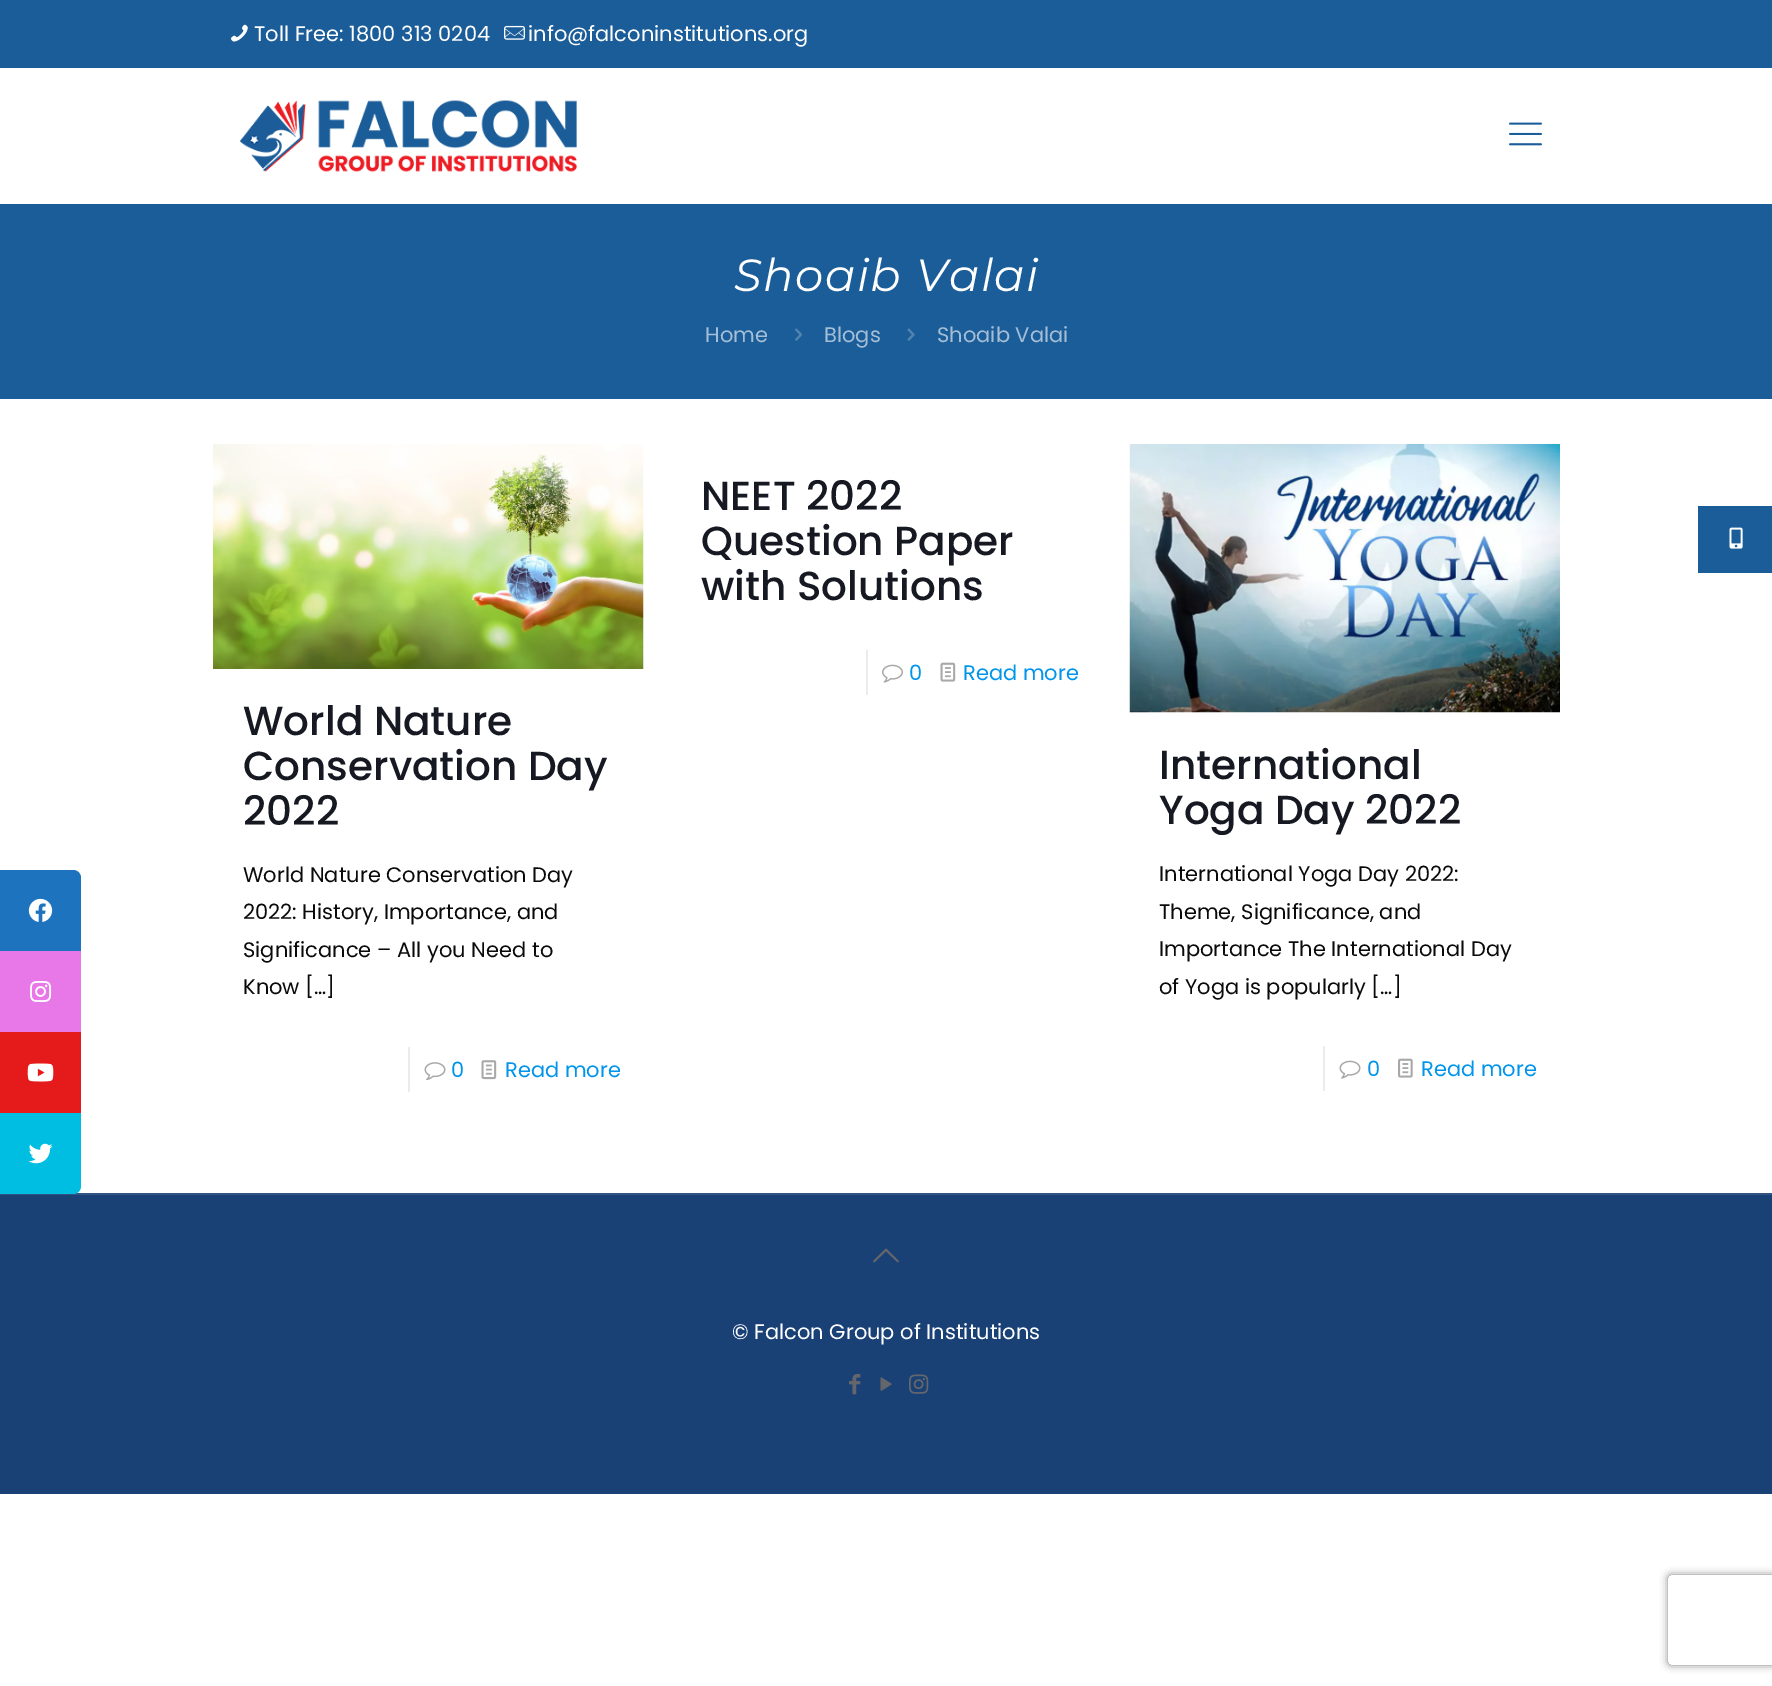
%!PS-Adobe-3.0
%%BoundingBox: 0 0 1772 1686
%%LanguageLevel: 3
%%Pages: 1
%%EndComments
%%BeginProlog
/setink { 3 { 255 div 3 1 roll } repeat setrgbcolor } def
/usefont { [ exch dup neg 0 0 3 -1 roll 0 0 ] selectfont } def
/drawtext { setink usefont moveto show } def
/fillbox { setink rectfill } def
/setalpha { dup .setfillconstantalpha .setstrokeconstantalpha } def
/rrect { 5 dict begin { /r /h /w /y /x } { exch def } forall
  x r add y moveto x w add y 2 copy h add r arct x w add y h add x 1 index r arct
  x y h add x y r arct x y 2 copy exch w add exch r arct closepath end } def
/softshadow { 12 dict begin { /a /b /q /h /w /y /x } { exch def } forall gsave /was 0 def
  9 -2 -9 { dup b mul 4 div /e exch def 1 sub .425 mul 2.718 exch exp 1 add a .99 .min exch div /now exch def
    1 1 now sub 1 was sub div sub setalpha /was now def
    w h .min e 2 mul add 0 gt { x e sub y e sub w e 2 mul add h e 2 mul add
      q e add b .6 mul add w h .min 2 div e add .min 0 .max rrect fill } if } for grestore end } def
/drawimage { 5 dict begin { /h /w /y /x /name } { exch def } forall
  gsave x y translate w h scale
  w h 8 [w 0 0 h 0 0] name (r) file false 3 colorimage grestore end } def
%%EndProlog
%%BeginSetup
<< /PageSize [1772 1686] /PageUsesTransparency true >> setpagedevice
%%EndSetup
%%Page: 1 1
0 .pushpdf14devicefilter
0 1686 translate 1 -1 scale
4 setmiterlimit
0 0 1772 1686 255 255 255 fillbox
0 0 1772 68 26 93 153 fillbox
(assets/img1.rgb) 231 24 17 18 drawimage
(Toll Free: 1800 313 0204) 254 41 /Poppins-Regular 21 255 255 255 drawtext
(assets/img2.rgb) 504 25 21 15 drawimage
(info@falconinstitutions.org) 528 41 /Poppins-Regular 21 255 255 255 drawtext
(assets/img3.rgb) 240 100 337 72 drawimage
(assets/img4.rgb) 1509 122 33 24 drawimage
0 204 1772 195 26 93 153 fillbox
/Montserrat-ThinItalic 45 usefont
255 255 255 setink
734 291 moveto 1.5 0 (Shoaib Valai) ashow
(Home) 705 342 /Poppins-Regular 21 163 190 214 drawtext
(assets/img5.rgb) 795 328 7 13 drawimage
(Blogs) 824 342 /Poppins-Regular 21 163 190 214 drawtext
(assets/img6.rgb) 907 328 8 13 drawimage
(Shoaib Valai) 937 342 /Poppins-Regular 21 163 190 214 drawtext
(NEET 2022) 701 510 /Poppins-Medium 40.5 22 25 34 drawtext
(Question Paper) 701 555 /Poppins-Medium 40.5 22 25 34 drawtext
(with Solutions) 701 600 /Poppins-Medium 40.5 22 25 34 drawtext
866 650 2 45 235 235 235 fillbox
(assets/img7.rgb) 882 664 21 19 drawimage
(0) 909 680 /Poppins-Regular 21 0 149 235 drawtext
(assets/img8.rgb) 940 662 16 20 drawimage
(Read more) 963 680 /Poppins-Regular 21 0 149 235 drawtext
(assets/img9.rgb) 213 444 431 225 drawimage
(World Nature) 243 735 /Poppins-Medium 40.5 22 25 34 drawtext
(Conservation Day) 243 780 /Poppins-Medium 40.5 22 25 34 drawtext
(2022) 243 825 /Poppins-Medium 40.5 22 25 34 drawtext
(World Nature Conservation Day) 243 882 /Poppins-Regular 21 10 10 10 drawtext
(2022: History, Importance, and) 243 919 /Poppins-Regular 21 10 10 10 drawtext
(Significance – All you Need to) 243 957 /Poppins-Regular 21 10 10 10 drawtext
(Know […]) 243 994 /Poppins-Regular 21 10 10 10 drawtext
408 1047 2 45 235 235 235 fillbox
(assets/img10.rgb) 424 1062 22 19 drawimage
(0) 451 1077 /Poppins-Regular 21 0 149 235 drawtext
(assets/img11.rgb) 481 1060 16 20 drawimage
(Read more) 505 1077 /Poppins-Regular 21 0 149 235 drawtext
(assets/img12.rgb) 1129 444 431 269 drawimage
(International) 1159 779 /Poppins-Medium 40.5 22 25 34 drawtext
(Yoga Day 2022) 1159 824 /Poppins-Medium 40.5 22 25 34 drawtext
(International Yoga Day 2022:) 1159 881 /Poppins-Regular 21 10 10 10 drawtext
(Theme, Significance, and) 1159 919 /Poppins-Regular 21 10 10 10 drawtext
(Importance The International Day) 1159 956 /Poppins-Regular 21 10 10 10 drawtext
(of Yoga is popularly […]) 1159 994 /Poppins-Regular 21 10 10 10 drawtext
1323 1046 2 45 235 235 235 fillbox
(assets/img13.rgb) 1339 1060 22 19 drawimage
(0) 1367 1076 /Poppins-Regular 21 0 149 235 drawtext
(assets/img14.rgb) 1398 1058 15 20 drawimage
(Read more) 1421 1076 /Poppins-Regular 21 0 149 235 drawtext
0 1195 1772 299 25 65 118 fillbox
0 1193 1772 2 48 84 132 fillbox
(assets/img15.rgb) 873 1248 26 15 drawimage
(© Falcon Group of Institutions) 732 1339 /Poppins-Regular 21 255 255 255 drawtext
(assets/img16.rgb) 849 1374 12 21 drawimage
(assets/img17.rgb) 880 1377 12 14 drawimage
(assets/img18.rgb) 909 1374 20 20 drawimage
1698 506 74 67 26 93 153 fillbox
(assets/img19.rgb) 1729 527 14 22 drawimage
30 115 190 setink
0 870 moveto 73 870 lineto 77.5 870 81 873.5 81 878 curveto 81 951 lineto 0 951 lineto closepath fill
(assets/img20.rgb) 28 898 25 24 drawimage
0 951 81 81 232 120 232 fillbox
(assets/img21.rgb) 30 981 22 21 drawimage
0 1032 81 81 229 27 27 fillbox
(assets/img22.rgb) 27 1063 27 19 drawimage
0 189 226 setink
0 1113 moveto 81 1113 lineto 81 1186 lineto 81 1190.5 77.5 1194 73 1194 curveto 0 1194 lineto closepath fill
(assets/img23.rgb) 28 1143 25 21 drawimage
gsave
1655 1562 moveto 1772 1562 lineto 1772 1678 lineto 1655 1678 lineto closepath 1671 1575 moveto 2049 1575 lineto 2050.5 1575 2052 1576.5 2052 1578 curveto 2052 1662 lineto 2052 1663.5 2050.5 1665 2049 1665 curveto 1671 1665 lineto 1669.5 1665 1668 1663.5 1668 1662 curveto 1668 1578 lineto 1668 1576.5 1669.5 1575 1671 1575 curveto closepath eoclip newpath
128 128 128 setink
1668 1575 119 90 3 4 1 softshadow
grestore
.poppdf14devicefilter showpage
%%EOF
